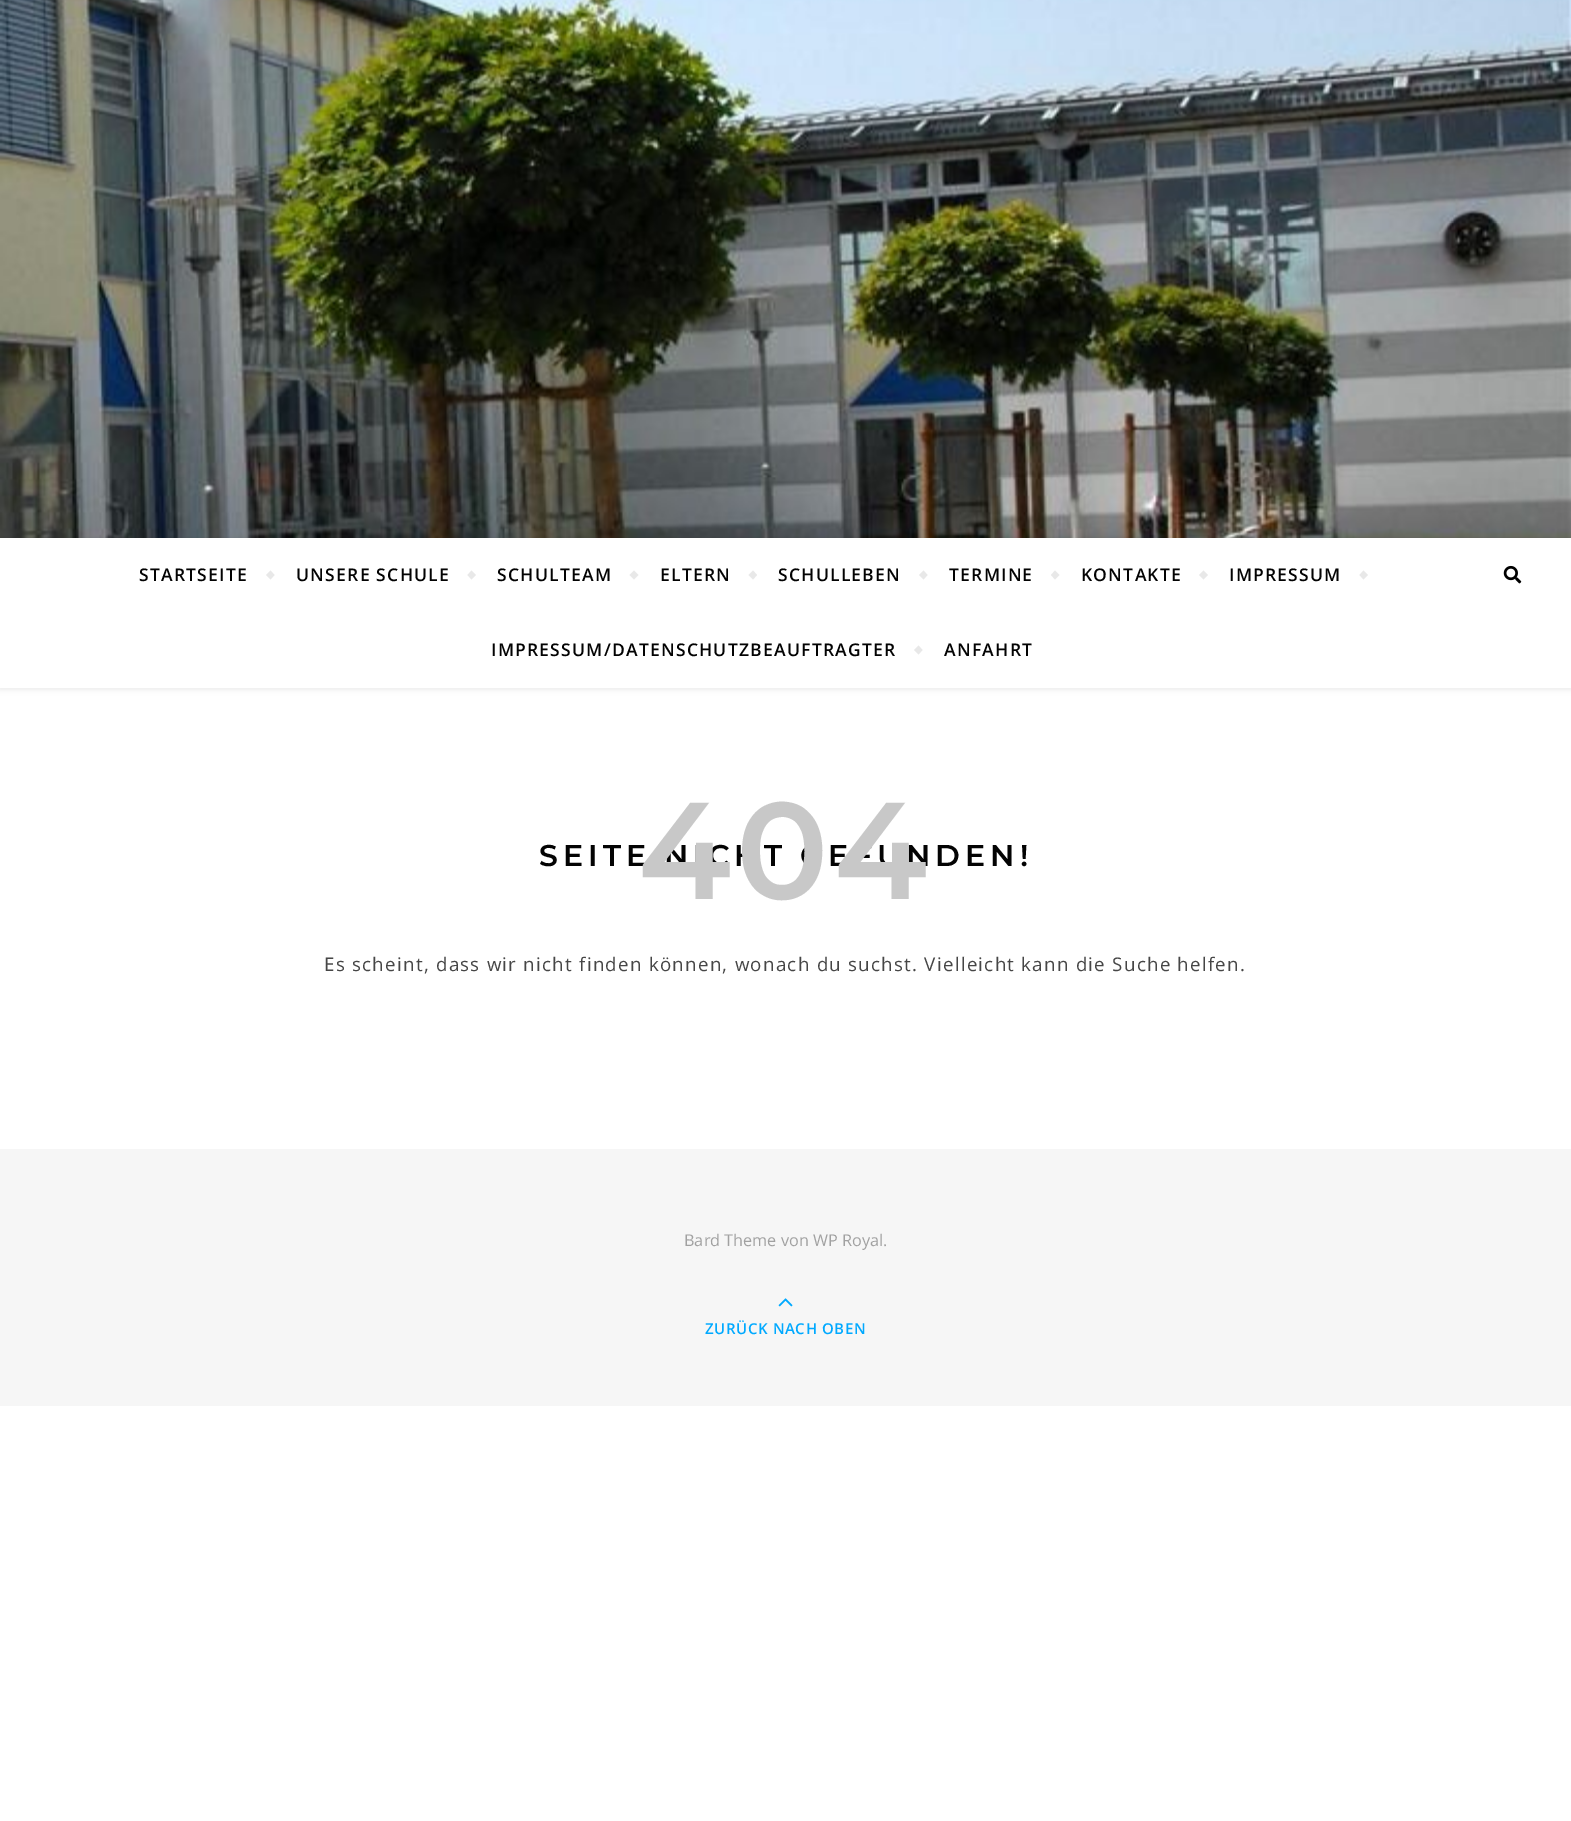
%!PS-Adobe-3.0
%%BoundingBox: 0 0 1571 1821
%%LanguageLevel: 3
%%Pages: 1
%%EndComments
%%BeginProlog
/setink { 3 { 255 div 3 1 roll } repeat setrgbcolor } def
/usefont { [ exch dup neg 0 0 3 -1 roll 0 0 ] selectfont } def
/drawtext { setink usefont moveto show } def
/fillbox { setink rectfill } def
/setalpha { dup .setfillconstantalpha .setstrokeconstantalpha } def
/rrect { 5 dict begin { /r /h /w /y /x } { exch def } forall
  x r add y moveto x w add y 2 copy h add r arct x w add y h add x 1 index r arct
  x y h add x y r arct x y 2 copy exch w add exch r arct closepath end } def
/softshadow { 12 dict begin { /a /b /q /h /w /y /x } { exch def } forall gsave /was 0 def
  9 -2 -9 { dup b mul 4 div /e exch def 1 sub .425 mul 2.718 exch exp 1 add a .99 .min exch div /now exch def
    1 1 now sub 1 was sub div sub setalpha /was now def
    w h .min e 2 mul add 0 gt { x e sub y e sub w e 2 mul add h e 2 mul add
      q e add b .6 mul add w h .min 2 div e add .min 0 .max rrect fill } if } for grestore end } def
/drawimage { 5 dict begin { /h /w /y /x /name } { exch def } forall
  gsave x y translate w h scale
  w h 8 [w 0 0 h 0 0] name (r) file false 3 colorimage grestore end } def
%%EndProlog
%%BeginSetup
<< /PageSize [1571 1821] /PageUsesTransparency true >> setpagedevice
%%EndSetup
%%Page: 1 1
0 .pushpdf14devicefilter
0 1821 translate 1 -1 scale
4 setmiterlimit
0 0 1571 1821 255 255 255 fillbox
(assets/img1.rgb) 0 0 1571 538 drawimage
0 0 0 setink
0 539 1571 150 0 3 0.1 softshadow
0 538 1571 150 255 255 255 fillbox
/OpenSans-SemiBold 17.5 usefont
3 3 3 setink
139 581 moveto 1.25 0 (STARTSEITE) ashow
232 232 232 setink
266 575 moveto 270.5 570.5 lineto 274.5 575 lineto 270.5 579.5 lineto closepath fill
3 3 3 setink
296 581 moveto 1.25 0 (UNSERE SCHULE) ashow
232 232 232 setink
467.5 575 moveto 471.5 570.5 lineto 476 575 lineto 471.5 579.5 lineto closepath fill
3 3 3 setink
497 581 moveto 1.25 0 (SCHULTEAM) ashow
232 232 232 setink
629.5 575 moveto 634 570.5 lineto 638.5 575 lineto 634 579.5 lineto closepath fill
3 3 3 setink
660 581 moveto 1.25 0 (ELTERN) ashow
232 232 232 setink
748.5 575 moveto 753 570.5 lineto 757 575 lineto 753 579.5 lineto closepath fill
3 3 3 setink
778 581 moveto 1.25 0 (SCHULLEBEN) ashow
232 232 232 setink
919 575 moveto 923.5 570.5 lineto 927.5 575 lineto 923.5 579.5 lineto closepath fill
3 3 3 setink
949 581 moveto 1.25 0 (TERMINE) ashow
232 232 232 setink
1051 575 moveto 1055 570.5 lineto 1059.5 575 lineto 1055 579.5 lineto closepath fill
3 3 3 setink
1081 581 moveto 1.25 0 (KONTAKTE) ashow
232 232 232 setink
1199 575 moveto 1203.5 570.5 lineto 1208 575 lineto 1203.5 579.5 lineto closepath fill
3 3 3 setink
1229 581 moveto 1.25 0 (IMPRESSUM) ashow
232 232 232 setink
1359.5 575 moveto 1363.5 570.5 lineto 1368 575 lineto 1363.5 579.5 lineto closepath fill
3 3 3 setink
491 656 moveto 1.25 0 (IMPRESSUM/DATENSCHUTZBEAUFTRAGTER) ashow
232 232 232 setink
914 650 moveto 918.5 645.5 lineto 922.5 650 lineto 918.5 654.5 lineto closepath fill
3 3 3 setink
944 656 moveto 1.25 0 (ANFAHRT) ashow
(assets/img2.rgb) 1503 565 19 19 drawimage
/Montserrat-SemiBold 30 usefont
539 866 moveto 5 0 (SEITE NICHT GEFUNDEN!) ashow
/Montserrat-SemiBold 137.5 usefont
200 200 200 setink
638 899 moveto 5 0 (404) ashow
/OpenSans-Regular 18.75 usefont
70 70 70 setink
324 971 moveto 1.25 0 (Es scheint, dass wir nicht finden können, wonach du suchst. Vielleicht kann die Suche helfen.) ashow
0 1149 1571 257 246 246 246 fillbox
(Bard Theme von WP Royal.) 684 1246 /OpenSans-Regular 16.25 161 161 161 drawtext
(assets/img3.rgb) 778 1298 15 9 drawimage
/OpenSans-SemiBold 15 usefont
0 169 255 setink
705 1334 moveto 0.6 0 (ZURÜCK NACH OBEN) ashow
.poppdf14devicefilter showpage
%%EOF
